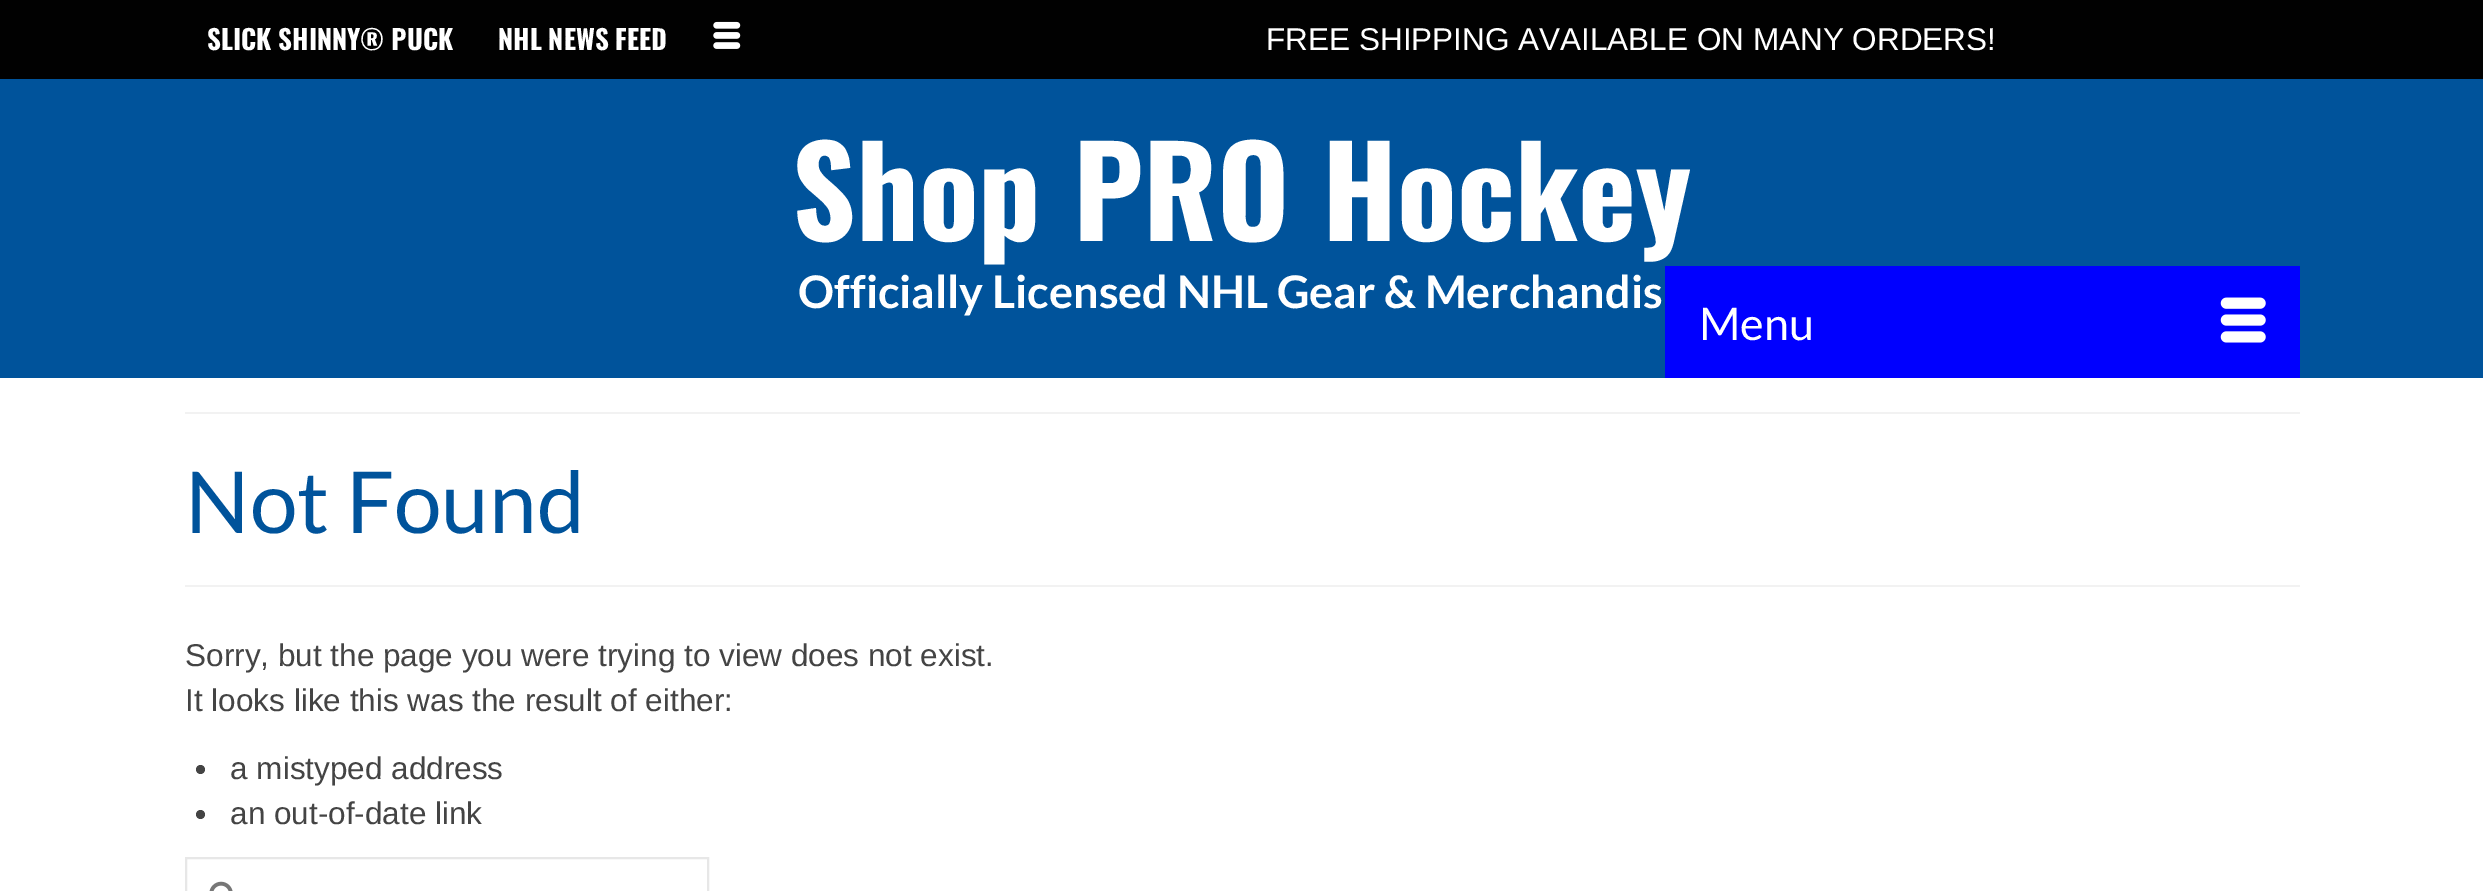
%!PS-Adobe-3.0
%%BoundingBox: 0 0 2483 891
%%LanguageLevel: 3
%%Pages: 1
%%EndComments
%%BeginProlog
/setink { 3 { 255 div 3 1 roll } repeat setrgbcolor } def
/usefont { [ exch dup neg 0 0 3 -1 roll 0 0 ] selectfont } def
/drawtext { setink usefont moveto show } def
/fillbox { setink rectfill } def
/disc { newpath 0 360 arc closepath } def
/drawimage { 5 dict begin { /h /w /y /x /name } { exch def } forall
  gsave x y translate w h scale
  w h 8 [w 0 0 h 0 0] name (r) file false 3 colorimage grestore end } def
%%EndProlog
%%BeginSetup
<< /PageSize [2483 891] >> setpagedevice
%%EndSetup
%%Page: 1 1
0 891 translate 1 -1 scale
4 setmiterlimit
0 0 2483 891 255 255 255 fillbox
0 79 2483 299 0 83 155 fillbox
0 0 2483 79 1 1 1 fillbox
(SLICK SHINNY® PUCK) 207 50 /Oswald-Bold 27 255 255 255 drawtext
(NHL NEWS FEED) 498 50 /Oswald-Bold 27 255 255 255 drawtext
(assets/img1.rgb) 713 21 28 28 drawimage
(FREE SHIPPING AVAILABLE ON MANY ORDERS!) 1266 50 /LiberationSans-Regular 31.5 255 255 255 drawtext
(Shop PRO Hockey) 792 241 /Oswald-Bold 123.75 255 255 255 drawtext
(Officially Licensed NHL Gear & Merchandis) 798 308 /Lato-Bold 45 255 255 255 drawtext
1665 266 635 112 0 0 255 fillbox
(Menu) 1699 340 /Lato-Regular 45 255 255 255 drawtext
(assets/img2.rgb) 2220 297 46 46 drawimage
185 412 2115 2 242 242 242 fillbox
185 585 2115 2 242 242 242 fillbox
(Not Found) 185 533 /Lato-Regular 85.5 0 83 155 drawtext
(Sorry, but the page you were trying to view does not exist.) 185 666 /LiberationSans-Regular 31.5 68 68 68 drawtext
(It looks like this was the result of either:) 185 711 /LiberationSans-Regular 31.5 68 68 68 drawtext
200.5 769.5 4.5 disc fill
(a mistyped address) 230 779 /LiberationSans-Regular 31.5 68 68 68 drawtext
200.5 814.5 4.5 disc fill
(an out-of-date link) 230 824 /LiberationSans-Regular 31.5 68 68 68 drawtext
231 231 231 setink
2 setlinewidth
186 858 522 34 rectstroke
(assets/img3.rgb) 209 881 24 10 drawimage
showpage
%%EOF
